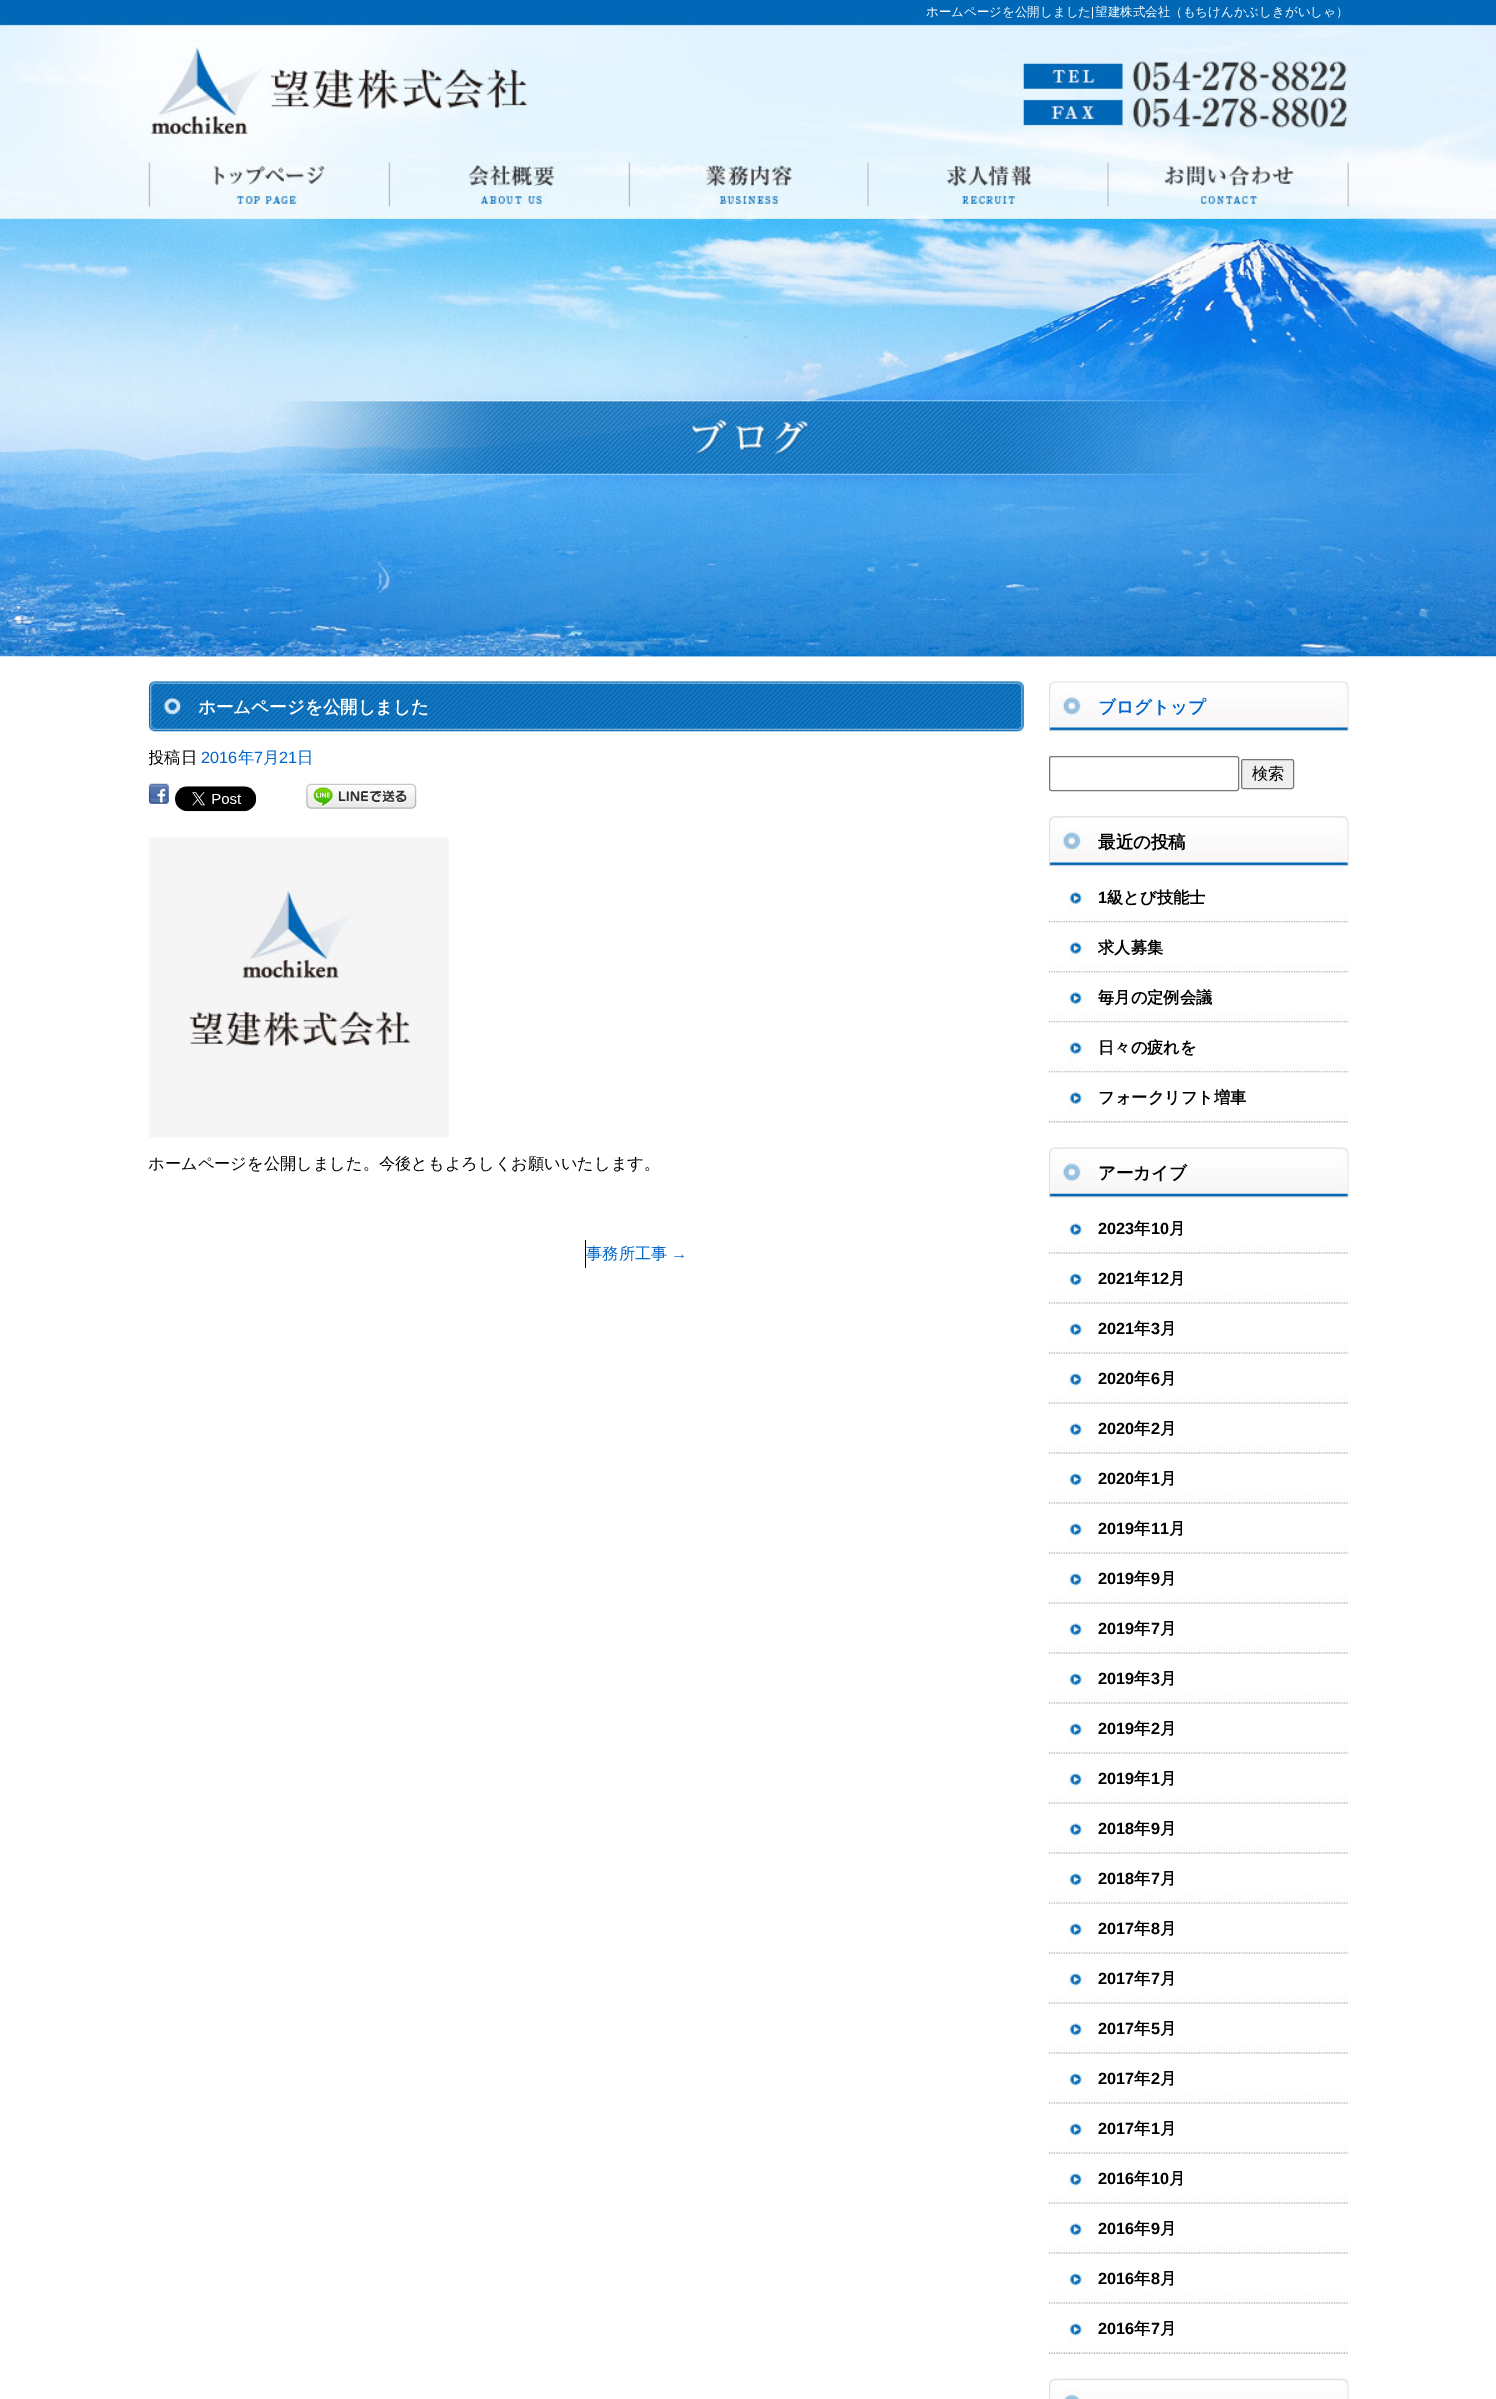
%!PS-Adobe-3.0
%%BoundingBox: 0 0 1496 2399
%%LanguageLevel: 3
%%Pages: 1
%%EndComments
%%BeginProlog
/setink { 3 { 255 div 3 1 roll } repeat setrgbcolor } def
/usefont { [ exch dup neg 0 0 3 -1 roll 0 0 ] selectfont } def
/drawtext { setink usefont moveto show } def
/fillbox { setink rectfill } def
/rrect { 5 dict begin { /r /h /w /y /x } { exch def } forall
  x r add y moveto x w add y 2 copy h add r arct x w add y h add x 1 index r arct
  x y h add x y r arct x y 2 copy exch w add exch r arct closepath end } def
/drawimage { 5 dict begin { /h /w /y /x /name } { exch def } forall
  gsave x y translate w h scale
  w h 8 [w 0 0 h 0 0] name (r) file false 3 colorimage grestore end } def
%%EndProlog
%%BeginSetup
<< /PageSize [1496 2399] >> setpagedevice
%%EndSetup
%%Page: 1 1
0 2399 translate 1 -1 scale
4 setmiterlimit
0 0 1496 2399 255 255 255 fillbox
(assets/img1.rgb) 0 0 1496 657 drawimage
(assets/img2.rgb) 149 40 1200 100 drawimage
(ホームページを公開しました) 926 16 /WenQuanYiZenHei-Medium 12.5 255 255 255 drawtext
(|) 1091 16 /LiberationSans-Regular 12.5 255 255 255 drawtext
(望建株式会社（もちけんかぶしきがいしゃ）) 1095 16 /WenQuanYiZenHei-Medium 12.5 255 255 255 drawtext
(assets/img8.rgb) 148 218 1201 439 drawimage
(assets/img3.rgb) 148 160 241 59 drawimage
(assets/img4.rgb) 388 160 241 59 drawimage
(assets/img5.rgb) 628 160 241 59 drawimage
(assets/img6.rgb) 868 160 241 59 drawimage
(assets/img7.rgb) 1108 160 241 59 drawimage
(assets/img9.rgb) 148 681 876 51 drawimage
(ホームページを公開しました) 198 713 /WenQuanYiZenHei-Bold 17.5 255 255 255 drawtext
gsave
149 681 1200 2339 rectclip
(投稿日) 148 763 /WenQuanYiZenHei-Medium 16.25 0 0 0 drawtext
grestore
(2016) 201 763 /LiberationSans-Regular 16.25 0 102 204 drawtext
(年) 238 763 /WenQuanYiZenHei-Medium 16.25 0 102 204 drawtext
(7) 254 763 /LiberationSans-Regular 16.25 0 102 204 drawtext
(月) 263 763 /WenQuanYiZenHei-Medium 16.25 0 102 204 drawtext
(21) 279 763 /LiberationSans-Regular 16.25 0 102 204 drawtext
(日) 297 763 /WenQuanYiZenHei-Medium 16.25 0 102 204 drawtext
(assets/img10.rgb) 148 783 21 21 drawimage
(assets/img11.rgb) 175 786 82 26 drawimage
(assets/img12.rgb) 306 783 111 26 drawimage
(assets/img13.rgb) 149 837 300 301 drawimage
(ホームページを公開しました。今後ともよろしくお願いいたします。) 148 1169 /WenQuanYiZenHei-Medium 16.25 0 0 0 drawtext
585 1240 1 28 0 0 0 fillbox
(事務所工事) 586 1259 /WenQuanYiZenHei-Medium 16.25 0 102 204 drawtext
(→) 671 1259 /LiberationSans-Regular 16.25 0 102 204 drawtext
(assets/img14.rgb) 1049 681 300 51 drawimage
(ブログトップ) 1098 713 /WenQuanYiZenHei-Bold 17.5 0 102 204 drawtext
118 118 118 setink
1049.5 756.5 189 34 2 rrect stroke
239 239 239 setink
1241.5 759.5 52 29 2 rrect gsave fill grestore
118 118 118 setink
stroke
(検索) 1252 779 /WenQuanYiZenHei-Medium 16.25 0 0 0 drawtext
(assets/img15.rgb) 1049 816 300 51 drawimage
(最近の投稿) 1098 848 /WenQuanYiZenHei-Bold 17.5 0 0 0 drawtext
(assets/img16.rgb) 1048 892 300 31 drawimage
(1) 1098 903 /LiberationSans-Bold 16.25 0 0 0 drawtext
(級とび技能士) 1107 903 /WenQuanYiZenHei-Bold 16.25 0 0 0 drawtext
(assets/img17.rgb) 1048 922 300 51 drawimage
(求人募集) 1098 953 /WenQuanYiZenHei-Bold 16.25 0 0 0 drawtext
(assets/img17.rgb) 1048 972 300 51 drawimage
(毎月の定例会議) 1098 1003 /WenQuanYiZenHei-Bold 16.25 0 0 0 drawtext
(assets/img17.rgb) 1048 1022 300 51 drawimage
(日々の疲れを) 1098 1053 /WenQuanYiZenHei-Bold 16.25 0 0 0 drawtext
(assets/img17.rgb) 1048 1072 300 51 drawimage
(フォークリフト増車) 1098 1103 /WenQuanYiZenHei-Bold 16.25 0 0 0 drawtext
(assets/img18.rgb) 1049 1147 300 51 drawimage
(アーカイブ) 1098 1179 /WenQuanYiZenHei-Bold 17.5 0 0 0 drawtext
(assets/img19.rgb) 1048 1223 300 31 drawimage
(2023) 1098 1234 /LiberationSans-Bold 16.25 0 0 0 drawtext
(年) 1134 1234 /WenQuanYiZenHei-Bold 16.25 0 0 0 drawtext
(10) 1151 1234 /LiberationSans-Bold 16.25 0 0 0 drawtext
(月) 1169 1234 /WenQuanYiZenHei-Bold 16.25 0 0 0 drawtext
(assets/img20.rgb) 1048 1253 300 51 drawimage
(2021) 1098 1284 /LiberationSans-Bold 16.25 0 0 0 drawtext
(年) 1134 1284 /WenQuanYiZenHei-Bold 16.25 0 0 0 drawtext
(12) 1151 1284 /LiberationSans-Bold 16.25 0 0 0 drawtext
(月) 1169 1284 /WenQuanYiZenHei-Bold 16.25 0 0 0 drawtext
(assets/img20.rgb) 1048 1303 300 51 drawimage
(2021) 1098 1334 /LiberationSans-Bold 16.25 0 0 0 drawtext
(年) 1134 1334 /WenQuanYiZenHei-Bold 16.25 0 0 0 drawtext
(3) 1151 1334 /LiberationSans-Bold 16.25 0 0 0 drawtext
(月) 1160 1334 /WenQuanYiZenHei-Bold 16.25 0 0 0 drawtext
(assets/img20.rgb) 1048 1353 300 51 drawimage
(2020) 1098 1384 /LiberationSans-Bold 16.25 0 0 0 drawtext
(年) 1134 1384 /WenQuanYiZenHei-Bold 16.25 0 0 0 drawtext
(6) 1151 1384 /LiberationSans-Bold 16.25 0 0 0 drawtext
(月) 1160 1384 /WenQuanYiZenHei-Bold 16.25 0 0 0 drawtext
(assets/img20.rgb) 1048 1403 300 51 drawimage
(2020) 1098 1434 /LiberationSans-Bold 16.25 0 0 0 drawtext
(年) 1134 1434 /WenQuanYiZenHei-Bold 16.25 0 0 0 drawtext
(2) 1151 1434 /LiberationSans-Bold 16.25 0 0 0 drawtext
(月) 1160 1434 /WenQuanYiZenHei-Bold 16.25 0 0 0 drawtext
(assets/img20.rgb) 1048 1453 300 51 drawimage
(2020) 1098 1484 /LiberationSans-Bold 16.25 0 0 0 drawtext
(年) 1134 1484 /WenQuanYiZenHei-Bold 16.25 0 0 0 drawtext
(1) 1151 1484 /LiberationSans-Bold 16.25 0 0 0 drawtext
(月) 1160 1484 /WenQuanYiZenHei-Bold 16.25 0 0 0 drawtext
(assets/img20.rgb) 1048 1503 300 51 drawimage
(2019) 1098 1534 /LiberationSans-Bold 16.25 0 0 0 drawtext
(年) 1134 1534 /WenQuanYiZenHei-Bold 16.25 0 0 0 drawtext
(11) 1151 1534 /LiberationSans-Bold 16.25 0 0 0 drawtext
(月) 1169 1534 /WenQuanYiZenHei-Bold 16.25 0 0 0 drawtext
(assets/img21.rgb) 1048 1553 300 51 drawimage
(2019) 1098 1584 /LiberationSans-Bold 16.25 0 0 0 drawtext
(年) 1134 1584 /WenQuanYiZenHei-Bold 16.25 0 0 0 drawtext
(9) 1151 1584 /LiberationSans-Bold 16.25 0 0 0 drawtext
(月) 1160 1584 /WenQuanYiZenHei-Bold 16.25 0 0 0 drawtext
(assets/img20.rgb) 1048 1603 300 51 drawimage
(2019) 1098 1634 /LiberationSans-Bold 16.25 0 0 0 drawtext
(年) 1134 1634 /WenQuanYiZenHei-Bold 16.25 0 0 0 drawtext
(7) 1151 1634 /LiberationSans-Bold 16.25 0 0 0 drawtext
(月) 1160 1634 /WenQuanYiZenHei-Bold 16.25 0 0 0 drawtext
(assets/img20.rgb) 1048 1653 300 51 drawimage
(2019) 1098 1684 /LiberationSans-Bold 16.25 0 0 0 drawtext
(年) 1134 1684 /WenQuanYiZenHei-Bold 16.25 0 0 0 drawtext
(3) 1151 1684 /LiberationSans-Bold 16.25 0 0 0 drawtext
(月) 1160 1684 /WenQuanYiZenHei-Bold 16.25 0 0 0 drawtext
(assets/img20.rgb) 1048 1703 300 51 drawimage
(2019) 1098 1734 /LiberationSans-Bold 16.25 0 0 0 drawtext
(年) 1134 1734 /WenQuanYiZenHei-Bold 16.25 0 0 0 drawtext
(2) 1151 1734 /LiberationSans-Bold 16.25 0 0 0 drawtext
(月) 1160 1734 /WenQuanYiZenHei-Bold 16.25 0 0 0 drawtext
(assets/img20.rgb) 1048 1753 300 51 drawimage
(2019) 1098 1784 /LiberationSans-Bold 16.25 0 0 0 drawtext
(年) 1134 1784 /WenQuanYiZenHei-Bold 16.25 0 0 0 drawtext
(1) 1151 1784 /LiberationSans-Bold 16.25 0 0 0 drawtext
(月) 1160 1784 /WenQuanYiZenHei-Bold 16.25 0 0 0 drawtext
(assets/img20.rgb) 1048 1803 300 51 drawimage
(2018) 1098 1834 /LiberationSans-Bold 16.25 0 0 0 drawtext
(年) 1134 1834 /WenQuanYiZenHei-Bold 16.25 0 0 0 drawtext
(9) 1151 1834 /LiberationSans-Bold 16.25 0 0 0 drawtext
(月) 1160 1834 /WenQuanYiZenHei-Bold 16.25 0 0 0 drawtext
(assets/img22.rgb) 1048 1853 300 51 drawimage
(2018) 1098 1884 /LiberationSans-Bold 16.25 0 0 0 drawtext
(年) 1134 1884 /WenQuanYiZenHei-Bold 16.25 0 0 0 drawtext
(7) 1151 1884 /LiberationSans-Bold 16.25 0 0 0 drawtext
(月) 1160 1884 /WenQuanYiZenHei-Bold 16.25 0 0 0 drawtext
(assets/img20.rgb) 1048 1903 300 51 drawimage
(2017) 1098 1934 /LiberationSans-Bold 16.25 0 0 0 drawtext
(年) 1134 1934 /WenQuanYiZenHei-Bold 16.25 0 0 0 drawtext
(8) 1151 1934 /LiberationSans-Bold 16.25 0 0 0 drawtext
(月) 1160 1934 /WenQuanYiZenHei-Bold 16.25 0 0 0 drawtext
(assets/img20.rgb) 1048 1953 300 51 drawimage
(2017) 1098 1984 /LiberationSans-Bold 16.25 0 0 0 drawtext
(年) 1134 1984 /WenQuanYiZenHei-Bold 16.25 0 0 0 drawtext
(7) 1151 1984 /LiberationSans-Bold 16.25 0 0 0 drawtext
(月) 1160 1984 /WenQuanYiZenHei-Bold 16.25 0 0 0 drawtext
(assets/img20.rgb) 1048 2003 300 51 drawimage
(2017) 1098 2034 /LiberationSans-Bold 16.25 0 0 0 drawtext
(年) 1134 2034 /WenQuanYiZenHei-Bold 16.25 0 0 0 drawtext
(5) 1151 2034 /LiberationSans-Bold 16.25 0 0 0 drawtext
(月) 1160 2034 /WenQuanYiZenHei-Bold 16.25 0 0 0 drawtext
(assets/img20.rgb) 1048 2053 300 51 drawimage
(2017) 1098 2084 /LiberationSans-Bold 16.25 0 0 0 drawtext
(年) 1134 2084 /WenQuanYiZenHei-Bold 16.25 0 0 0 drawtext
(2) 1151 2084 /LiberationSans-Bold 16.25 0 0 0 drawtext
(月) 1160 2084 /WenQuanYiZenHei-Bold 16.25 0 0 0 drawtext
(assets/img20.rgb) 1048 2103 300 51 drawimage
(2017) 1098 2134 /LiberationSans-Bold 16.25 0 0 0 drawtext
(年) 1134 2134 /WenQuanYiZenHei-Bold 16.25 0 0 0 drawtext
(1) 1151 2134 /LiberationSans-Bold 16.25 0 0 0 drawtext
(月) 1160 2134 /WenQuanYiZenHei-Bold 16.25 0 0 0 drawtext
(assets/img20.rgb) 1048 2153 300 51 drawimage
(2016) 1098 2184 /LiberationSans-Bold 16.25 0 0 0 drawtext
(年) 1134 2184 /WenQuanYiZenHei-Bold 16.25 0 0 0 drawtext
(10) 1151 2184 /LiberationSans-Bold 16.25 0 0 0 drawtext
(月) 1169 2184 /WenQuanYiZenHei-Bold 16.25 0 0 0 drawtext
(assets/img20.rgb) 1048 2203 300 51 drawimage
(2016) 1098 2234 /LiberationSans-Bold 16.25 0 0 0 drawtext
(年) 1134 2234 /WenQuanYiZenHei-Bold 16.25 0 0 0 drawtext
(9) 1151 2234 /LiberationSans-Bold 16.25 0 0 0 drawtext
(月) 1160 2234 /WenQuanYiZenHei-Bold 16.25 0 0 0 drawtext
(assets/img20.rgb) 1048 2253 300 51 drawimage
(2016) 1098 2284 /LiberationSans-Bold 16.25 0 0 0 drawtext
(年) 1134 2284 /WenQuanYiZenHei-Bold 16.25 0 0 0 drawtext
(8) 1151 2284 /LiberationSans-Bold 16.25 0 0 0 drawtext
(月) 1160 2284 /WenQuanYiZenHei-Bold 16.25 0 0 0 drawtext
(assets/img20.rgb) 1048 2303 300 51 drawimage
(2016) 1098 2334 /LiberationSans-Bold 16.25 0 0 0 drawtext
(年) 1134 2334 /WenQuanYiZenHei-Bold 16.25 0 0 0 drawtext
(7) 1151 2334 /LiberationSans-Bold 16.25 0 0 0 drawtext
(月) 1160 2334 /WenQuanYiZenHei-Bold 16.25 0 0 0 drawtext
(assets/img23.rgb) 1049 2378 300 21 drawimage
showpage
%%EOF
